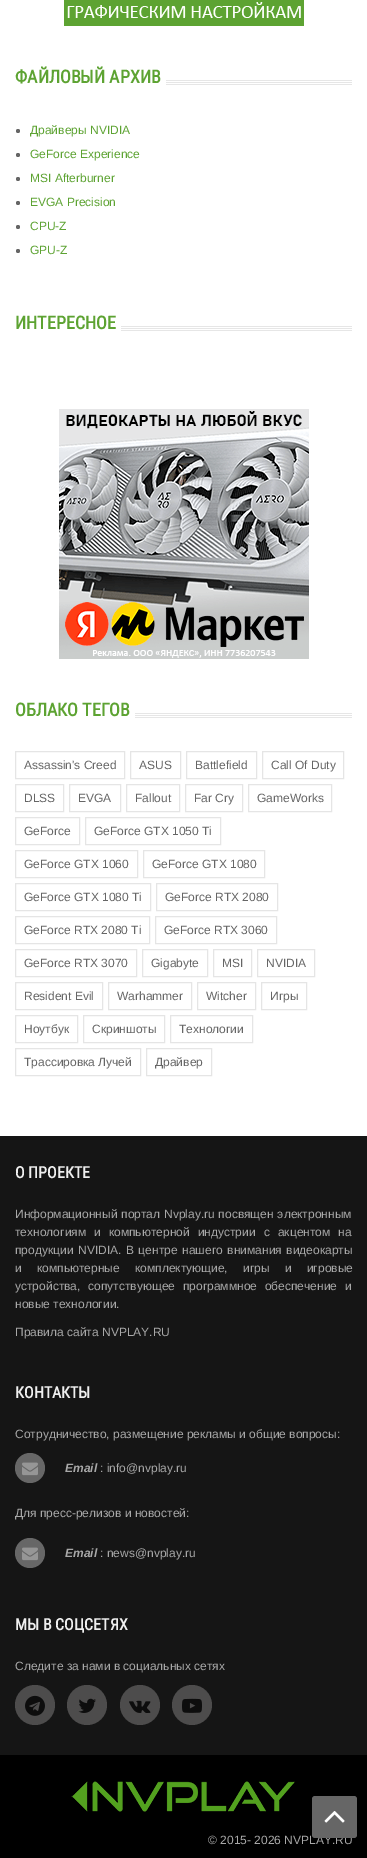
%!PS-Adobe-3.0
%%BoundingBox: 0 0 367 1858
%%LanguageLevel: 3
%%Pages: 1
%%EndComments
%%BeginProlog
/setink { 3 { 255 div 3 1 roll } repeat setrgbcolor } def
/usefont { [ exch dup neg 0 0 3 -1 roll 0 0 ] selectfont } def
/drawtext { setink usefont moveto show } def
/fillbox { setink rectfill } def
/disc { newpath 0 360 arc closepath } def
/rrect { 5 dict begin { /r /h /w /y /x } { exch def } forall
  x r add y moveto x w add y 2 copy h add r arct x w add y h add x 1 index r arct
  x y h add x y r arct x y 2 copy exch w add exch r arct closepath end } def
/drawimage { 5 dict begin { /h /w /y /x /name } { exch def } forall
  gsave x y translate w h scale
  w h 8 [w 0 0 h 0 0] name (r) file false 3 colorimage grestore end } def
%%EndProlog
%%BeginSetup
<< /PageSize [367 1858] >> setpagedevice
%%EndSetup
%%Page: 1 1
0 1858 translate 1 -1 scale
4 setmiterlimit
0 0 367 1858 255 255 255 fillbox
(assets/img1.rgb) 64 0 240 26 drawimage
(assets/img2.rgb) 166 80 186 5 drawimage
(ФАЙЛОВЫЙ АРХИВ) 15 83 /RobotoCondensed-Bold 18 93 163 50 drawtext
102 102 102 setink
18 131 2 disc fill
(Драйверы NVIDIA) 30 134 /LiberationSans-Regular 12 93 163 50 drawtext
102 102 102 setink
18 155 2 disc fill
(GeForce Experience) 30 158 /LiberationSans-Regular 12 93 163 50 drawtext
102 102 102 setink
18 179 2 disc fill
(MSI Afterburner) 30 182 /LiberationSans-Regular 12 93 163 50 drawtext
102 102 102 setink
18 203 2 disc fill
(EVGA Precision) 30 206 /LiberationSans-Regular 12 93 163 50 drawtext
102 102 102 setink
18 227 2 disc fill
(CPU-Z) 30 230 /LiberationSans-Regular 12 93 163 50 drawtext
102 102 102 setink
18 251 2 disc fill
(GPU-Z) 30 254 /LiberationSans-Regular 12 93 163 50 drawtext
(assets/img3.rgb) 121 326 231 5 drawimage
(ИНТЕРЕСНОЕ) 15 329 /RobotoCondensed-Bold 18 93 163 50 drawtext
(assets/img4.rgb) 59 409 250 250 drawimage
(assets/img5.rgb) 135 713 217 5 drawimage
(ОБЛАКО ТЕГОВ) 15 716 /RobotoCondensed-Bold 18 93 163 50 drawtext
229 229 229 setink
15.5 751.5 109 27 rectstroke
(Assassin's Creed) 24 769 /LiberationSans-Regular 12 102 102 102 drawtext
229 229 229 setink
130.5 751.5 50 27 rectstroke
(ASUS) 139 769 /LiberationSans-Regular 12 102 102 102 drawtext
229 229 229 setink
186.5 751.5 70 27 rectstroke
(Battlefield) 195 769 /LiberationSans-Regular 12 102 102 102 drawtext
229 229 229 setink
262.5 751.5 81 27 rectstroke
(Call Of Duty) 271 769 /LiberationSans-Regular 12 102 102 102 drawtext
229 229 229 setink
15.5 784.5 48 27 rectstroke
(DLSS) 24 802 /LiberationSans-Regular 12 102 102 102 drawtext
229 229 229 setink
69.5 784.5 51 27 rectstroke
(EVGA) 78 802 /LiberationSans-Regular 12 102 102 102 drawtext
229 229 229 setink
126.5 784.5 53 27 rectstroke
(Fallout) 135 802 /LiberationSans-Regular 12 102 102 102 drawtext
229 229 229 setink
185.5 784.5 57 27 rectstroke
(Far Cry) 194 802 /LiberationSans-Regular 12 102 102 102 drawtext
229 229 229 setink
248.5 784.5 83 27 rectstroke
(GameWorks) 257 802 /LiberationSans-Regular 12 102 102 102 drawtext
229 229 229 setink
15.5 817.5 64 27 rectstroke
(GeForce) 24 835 /LiberationSans-Regular 12 102 102 102 drawtext
229 229 229 setink
85.5 817.5 135 27 rectstroke
(GeForce GTX 1050 Ti) 94 835 /LiberationSans-Regular 12 102 102 102 drawtext
229 229 229 setink
15.5 850.5 122 27 rectstroke
(GeForce GTX 1060) 24 868 /LiberationSans-Regular 12 102 102 102 drawtext
229 229 229 setink
143.5 850.5 121 27 rectstroke
(GeForce GTX 1080) 152 868 /LiberationSans-Regular 12 102 102 102 drawtext
229 229 229 setink
15.5 883.5 135 27 rectstroke
(GeForce GTX 1080 Ti) 24 901 /LiberationSans-Regular 12 102 102 102 drawtext
229 229 229 setink
156.5 883.5 121 27 rectstroke
(GeForce RTX 2080) 165 901 /LiberationSans-Regular 12 102 102 102 drawtext
229 229 229 setink
15.5 916.5 134 27 rectstroke
(GeForce RTX 2080 Ti) 24 934 /LiberationSans-Regular 12 102 102 102 drawtext
229 229 229 setink
155.5 916.5 121 27 rectstroke
(GeForce RTX 3060) 164 934 /LiberationSans-Regular 12 102 102 102 drawtext
229 229 229 setink
15.5 949.5 121 27 rectstroke
(GeForce RTX 3070) 24 967 /LiberationSans-Regular 12 102 102 102 drawtext
229 229 229 setink
142.5 949.5 65 27 rectstroke
(Gigabyte) 151 967 /LiberationSans-Regular 12 102 102 102 drawtext
229 229 229 setink
213.5 949.5 38 27 rectstroke
(MSI) 222 967 /LiberationSans-Regular 12 102 102 102 drawtext
229 229 229 setink
257.5 949.5 57 27 rectstroke
(NVIDIA) 266 967 /LiberationSans-Regular 12 102 102 102 drawtext
229 229 229 setink
15.5 982.5 87 27 rectstroke
(Resident Evil) 24 1000 /LiberationSans-Regular 12 102 102 102 drawtext
229 229 229 setink
108.5 982.5 83 27 rectstroke
(Warhammer) 117 1000 /LiberationSans-Regular 12 102 102 102 drawtext
229 229 229 setink
197.5 982.5 58 27 rectstroke
(Witcher) 206 1000 /LiberationSans-Regular 12 102 102 102 drawtext
229 229 229 setink
261.5 982.5 45 27 rectstroke
(Игры) 270 1000 /LiberationSans-Regular 12 102 102 102 drawtext
229 229 229 setink
15.5 1015.5 62 27 rectstroke
(Ноутбук) 24 1033 /LiberationSans-Regular 12 102 102 102 drawtext
229 229 229 setink
83.5 1015.5 81 27 rectstroke
(Скриншоты) 92 1033 /LiberationSans-Regular 12 102 102 102 drawtext
229 229 229 setink
170.5 1015.5 82 27 rectstroke
(Технологии) 179 1033 /LiberationSans-Regular 12 102 102 102 drawtext
229 229 229 setink
15.5 1048.5 125 27 rectstroke
(Трассировка Лучей) 24 1066 /LiberationSans-Regular 12 102 102 102 drawtext
229 229 229 setink
146.5 1048.5 65 27 rectstroke
(Драйвер) 155 1066 /LiberationSans-Regular 12 102 102 102 drawtext
0 1136 367 619 21 21 21 fillbox
(О ПРОЕКТЕ) 15 1178 /RobotoCondensed-Bold 16 239 239 239 drawtext
/LiberationSans-Regular 12 usefont
168 168 168 setink
15 1218 moveto 0.5 0 32 (Информационный портал Nvplay.ru посвящен электронным) widthshow
15 1236 moveto 4.75 0 32 (технологиям и компьютерной индустрии с акцентом на) widthshow
15 1254 moveto 1.25 0 32 (продукции NVIDIA. В центре нашего внимания видеокарты) widthshow
15 1272 moveto 12 0 32 (и компьютерные комплектующие, игры и игровые) widthshow
15 1290 moveto 4.5 0 32 (устройства, сопутствующее программное обеспечение и) widthshow
(новые технологии.) 15 1308 /LiberationSans-Regular 12 168 168 168 drawtext
(Правила сайта NVPLAY.RU) 15 1336 /LiberationSans-Regular 12 168 168 168 drawtext
(КОНТАКТЫ) 15 1398 /RobotoCondensed-Bold 16 239 239 239 drawtext
(Сотрудничество, размещение рекламы и общие вопросы:) 15 1438 /LiberationSans-Regular 12 168 168 168 drawtext
103 103 103 setink
30 1468 15 disc fill
(assets/img6.rgb) 22 1462 16 14 drawimage
(Email) 65 1472 /LiberationSans-BoldItalic 12 168 168 168 drawtext
(: info@nvplay.ru) 100 1472 /LiberationSans-Regular 12 168 168 168 drawtext
(Для пресс-релизов и новостей:) 15 1517 /LiberationSans-Regular 12 168 168 168 drawtext
103 103 103 setink
30 1553 15 disc fill
(assets/img6.rgb) 22 1547 16 14 drawimage
(Email) 65 1557 /LiberationSans-BoldItalic 12 168 168 168 drawtext
(: news@nvplay.ru) 100 1557 /LiberationSans-Regular 12 168 168 168 drawtext
(МЫ В СОЦСЕТЯХ) 15 1630 /RobotoCondensed-Bold 16 239 239 239 drawtext
(Следите за нами в социальных сетях) 15 1670 /LiberationSans-Regular 12 168 168 168 drawtext
77 76 76 setink
35 1705 20 disc fill
(assets/img7.rgb) 25 1695 20 21 drawimage
87 1705 20 disc fill
(assets/img8.rgb) 78 1698 18 15 drawimage
140 1705 20 disc fill
(assets/img9.rgb) 129 1700 22 13 drawimage
192 1705 20 disc fill
(assets/img10.rgb) 182 1698 20 15 drawimage
0 1755 367 103 0 0 0 fillbox
(© 2015- 2026 NVPLAY.RU) 208 1844 /LiberationSans-Regular 12 168 168 168 drawtext
102 102 102 setink
312 1796 45 42 3 rrect fill
(assets/img11.rgb) 324 1811 21 12 drawimage
(assets/img12.rgb) 71 1781 224 31 drawimage
showpage
%%EOF
